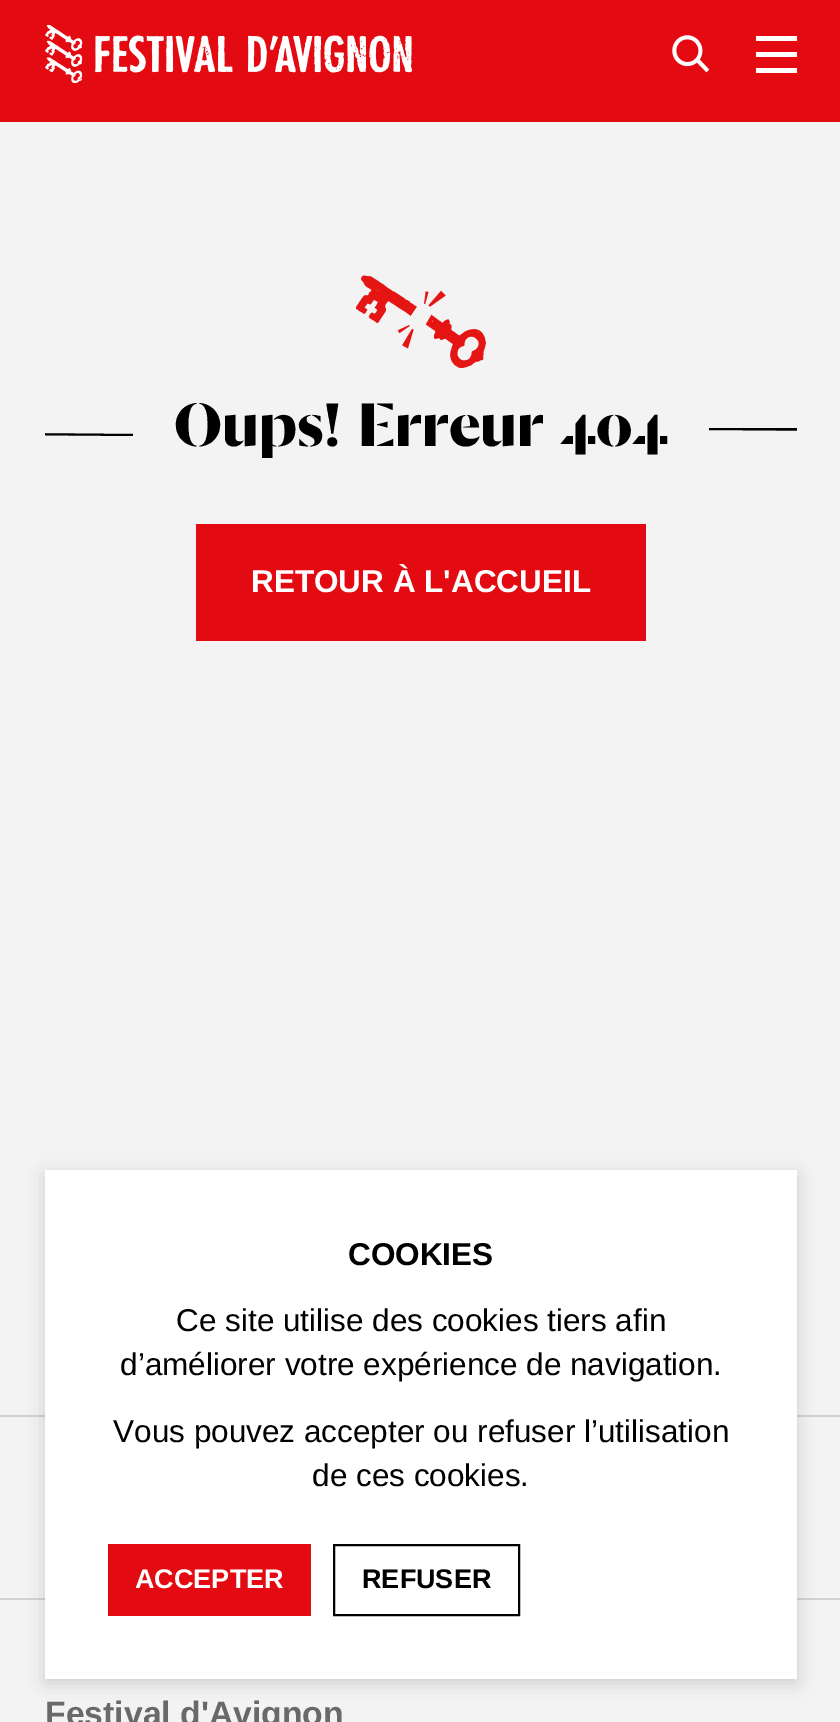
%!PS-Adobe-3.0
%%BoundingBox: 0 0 840 1722
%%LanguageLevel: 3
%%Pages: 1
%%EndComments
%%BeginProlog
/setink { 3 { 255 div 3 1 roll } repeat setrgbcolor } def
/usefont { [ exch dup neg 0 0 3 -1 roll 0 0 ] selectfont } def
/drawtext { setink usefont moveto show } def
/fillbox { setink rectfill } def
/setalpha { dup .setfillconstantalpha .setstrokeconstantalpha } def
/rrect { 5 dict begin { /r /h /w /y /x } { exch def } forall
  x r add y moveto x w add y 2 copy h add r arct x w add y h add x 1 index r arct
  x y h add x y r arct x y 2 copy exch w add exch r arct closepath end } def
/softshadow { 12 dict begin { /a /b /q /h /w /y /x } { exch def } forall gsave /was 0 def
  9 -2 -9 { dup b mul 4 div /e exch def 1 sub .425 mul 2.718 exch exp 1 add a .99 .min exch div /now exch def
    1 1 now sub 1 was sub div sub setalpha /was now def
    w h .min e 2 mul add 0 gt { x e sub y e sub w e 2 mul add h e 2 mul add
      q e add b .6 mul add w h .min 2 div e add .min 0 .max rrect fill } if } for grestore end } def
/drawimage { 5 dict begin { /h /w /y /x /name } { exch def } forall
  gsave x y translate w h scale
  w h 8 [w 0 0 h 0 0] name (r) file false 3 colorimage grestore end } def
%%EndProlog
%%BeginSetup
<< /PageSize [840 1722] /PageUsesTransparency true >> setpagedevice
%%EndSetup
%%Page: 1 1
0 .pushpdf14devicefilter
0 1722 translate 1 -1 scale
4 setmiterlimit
0 0 840 1722 243 243 243 fillbox
0 0 840 122 227 10 17 fillbox
(assets/img1.rgb) 45 25 367 58 drawimage
(assets/img2.rgb) 672 35 38 38 drawimage
756 36 41 5 255 255 255 fillbox
756 52 41 5 255 255 255 fillbox
756 68 41 5 255 255 255 fillbox
(assets/img3.rgb) 356 275 130 94 drawimage
/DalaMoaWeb-Bold 67.5 usefont
0 0 0 setink
174 446 moveto 6 0 32 (Oups! Erreur 404) widthshow
gsave
709 428 88 9 rectclip
709 428 moveto 709 430 lineto 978 432 lineto 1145 431 lineto 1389 432 lineto 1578 432 lineto 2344 433 lineto 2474 434 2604 435 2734 436 curveto 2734 434 lineto 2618 433 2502 432 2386 431 curveto 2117 430 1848 430 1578 430 curveto 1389 430 lineto 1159 429 lineto 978 429 lineto 748 428 lineto closepath fill
grestore
gsave
45 428 88 9 rectclip
-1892 428 moveto -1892 430 lineto -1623 432 lineto -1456 431 lineto -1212 432 lineto -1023 432 lineto -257 433 lineto -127 434 3 435 133 436 curveto 133 434 lineto 17 433 -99 432 -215 431 curveto -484 430 -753 430 -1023 430 curveto -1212 430 lineto -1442 429 lineto -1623 429 lineto -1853 428 lineto closepath fill
grestore
196 524 450 117 227 10 17 fillbox
(RETOUR À L'ACCUEIL) 251 592 /LiberationSans-Bold 31.5 255 255 255 drawtext
0 1598 840 2 210 210 210 fillbox
0 1415 840 2 210 210 210 fillbox
(Festival d'Avignon) 45 1725 /LiberationSans-Bold 33.75 105 105 105 drawtext
0 0 0 setink
45 1175 752 508 0 9 0.15 softshadow
45 1170 752 509 255 255 255 fillbox
(COOKIES) 348 1265 /LiberationSans-Bold 31.5 0 0 0 drawtext
(Ce site utilise des cookies tiers afin) 176 1331 /LiberationSans-Regular 31.5 0 0 0 drawtext
(d’améliorer votre expérience de navigation.) 120 1375 /LiberationSans-Regular 31.5 0 0 0 drawtext
(Vous pouvez accepter ou refuser l’utilisation) 113 1442 /LiberationSans-Regular 31.5 0 0 0 drawtext
(de ces cookies.) 312 1486 /LiberationSans-Regular 31.5 0 0 0 drawtext
108 1544 203 72 227 10 17 fillbox
(ACCEPTER) 135 1588 /LiberationSans-Bold 27 255 255 255 drawtext
0 0 0 setink
2 setlinewidth
334 1545 185 70 rectstroke
(REFUSER) 362 1588 /LiberationSans-Bold 27 0 0 0 drawtext
.poppdf14devicefilter showpage
%%EOF
